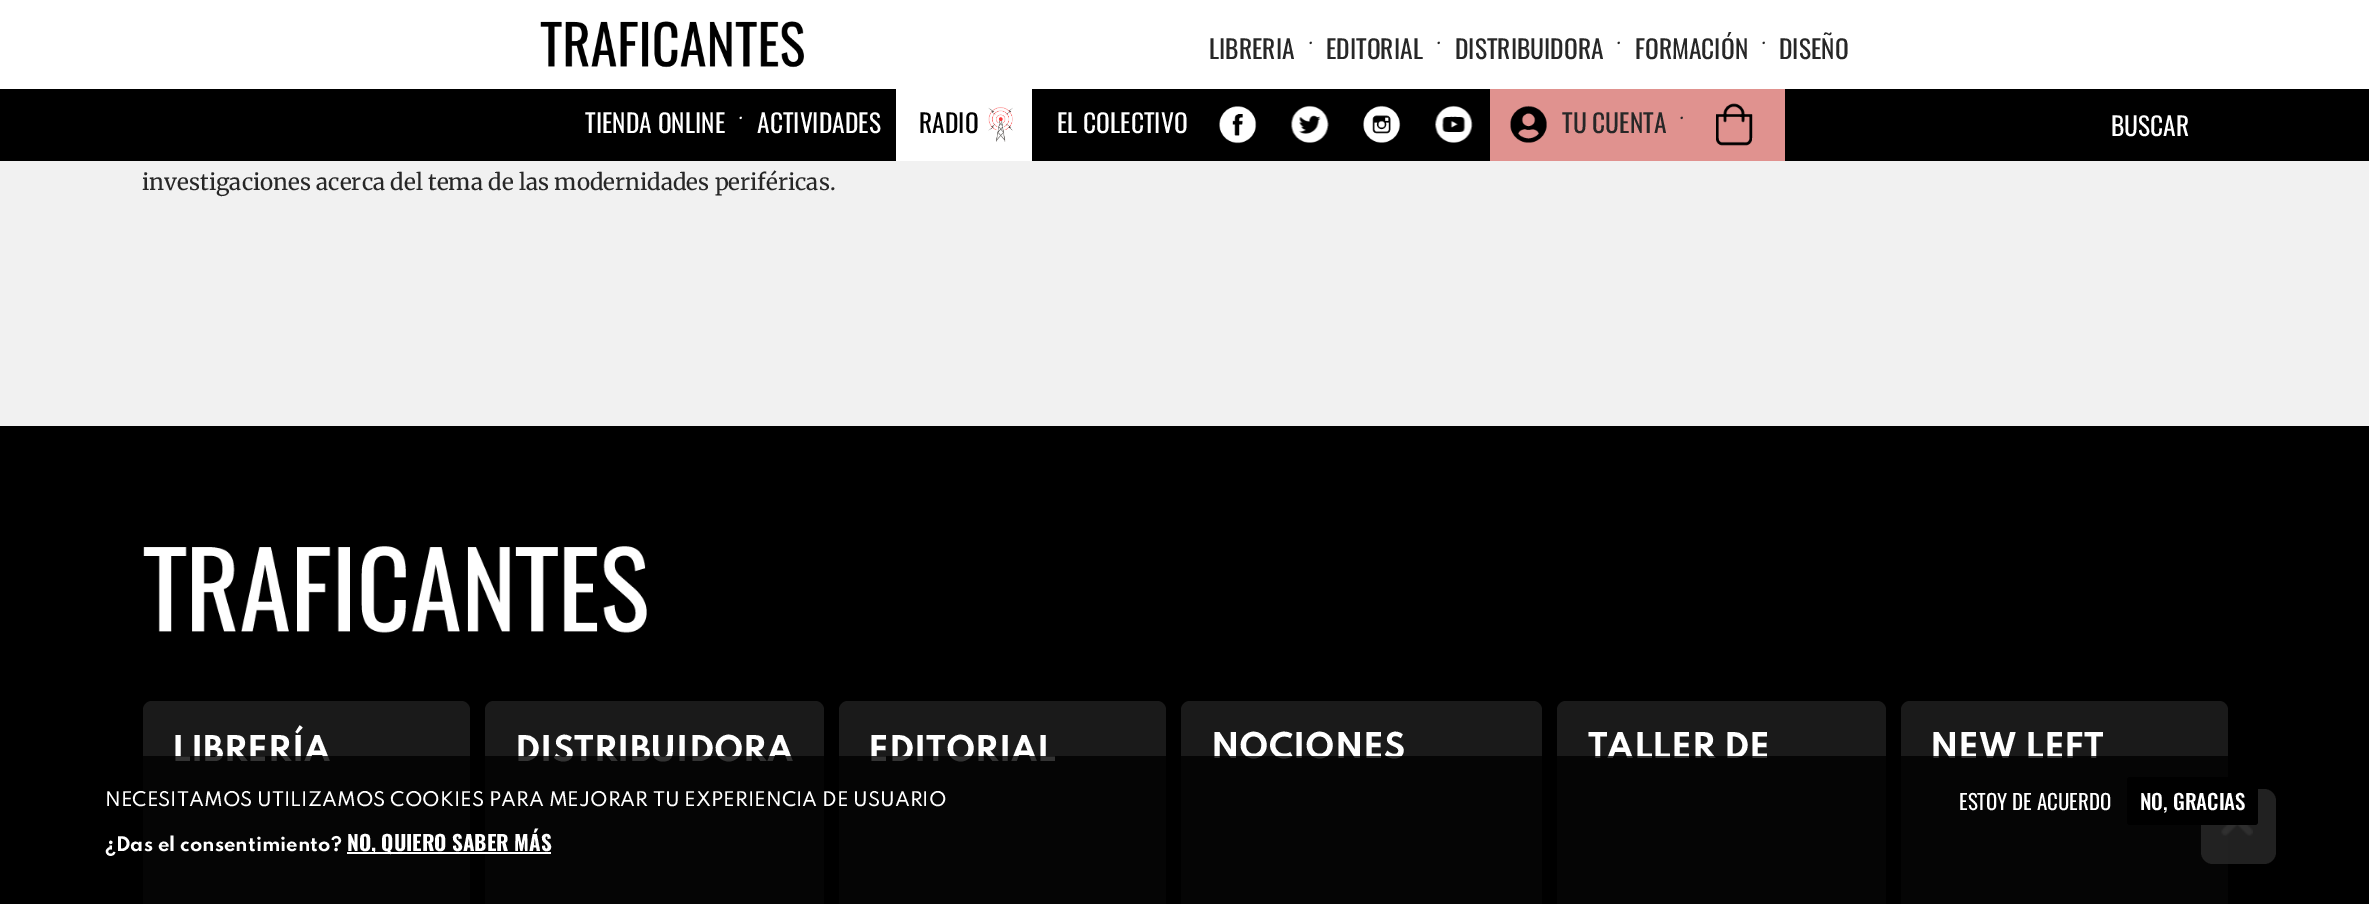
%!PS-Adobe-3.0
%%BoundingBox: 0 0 2369 904
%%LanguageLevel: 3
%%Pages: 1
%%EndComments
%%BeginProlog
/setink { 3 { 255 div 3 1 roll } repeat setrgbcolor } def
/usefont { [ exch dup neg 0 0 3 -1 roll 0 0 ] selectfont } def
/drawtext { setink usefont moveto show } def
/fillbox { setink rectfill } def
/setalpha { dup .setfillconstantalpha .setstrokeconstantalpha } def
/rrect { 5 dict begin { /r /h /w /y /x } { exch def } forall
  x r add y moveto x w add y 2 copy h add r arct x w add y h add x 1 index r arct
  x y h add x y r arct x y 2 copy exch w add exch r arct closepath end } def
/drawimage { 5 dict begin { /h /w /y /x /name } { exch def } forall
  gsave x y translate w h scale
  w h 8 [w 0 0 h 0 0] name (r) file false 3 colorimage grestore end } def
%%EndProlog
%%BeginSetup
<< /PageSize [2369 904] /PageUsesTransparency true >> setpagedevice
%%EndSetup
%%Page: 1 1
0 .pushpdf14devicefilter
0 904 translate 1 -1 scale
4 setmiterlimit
0 0 2369 904 0 0 0 fillbox
0 0 2369 89 255 255 255 fillbox
(assets/img1.rgb) 540 21 264 47 drawimage
(LIBRERIA) 1209 59 /Oswald-Regular 25.5 39 39 39 drawtext
(·) 1310 51 /Merriweather-Light 20 39 39 39 drawtext
(EDITORIAL) 1326 59 /Oswald-Regular 25.5 39 39 39 drawtext
(·) 1438 51 /Merriweather-Light 20 39 39 39 drawtext
(DISTRIBUIDORA) 1455 59 /Oswald-Regular 25.5 39 39 39 drawtext
(·) 1618 51 /Merriweather-Light 20 39 39 39 drawtext
(FORMACIÓN) 1635 59 /Oswald-Regular 25.5 39 39 39 drawtext
(·) 1763 51 /Merriweather-Light 20 39 39 39 drawtext
(DISEÑO) 1779 59 /Oswald-Regular 25.5 39 39 39 drawtext
(TIENDA ONLINE) 585 133 /Oswald-Regular 25.5 255 255 255 drawtext
(·) 740 126 /Merriweather-Light 20 255 255 255 drawtext
(ACTIVIDADES) 757 133 /Oswald-Regular 25.5 255 255 255 drawtext
896 89 136 72 255 255 255 fillbox
(assets/img2.rgb) 988 107 25 35 drawimage
(RADIO) 919 133 /Oswald-Regular 25.5 0 0 0 drawtext
(EL COLECTIVO) 1057 133 /Oswald-Regular 25.5 255 255 255 drawtext
(assets/img3.rgb) 1219 106 38 38 drawimage
(assets/img4.rgb) 1291 105 38 38 drawimage
(assets/img5.rgb) 1363 105 38 38 drawimage
(assets/img6.rgb) 1435 105 38 38 drawimage
1490 89 295 72 224 146 143 fillbox
(assets/img7.rgb) 1510 105 37 38 drawimage
(TU CUENTA) 1562 133 /Oswald-Regular 25.5 39 39 39 drawtext
(·) 1681 126 /Merriweather-Light 20 39 39 39 drawtext
(assets/img8.rgb) 1716 103 37 43 drawimage
(BUSCAR) 2111 136 /Oswald-Regular 25.5 255 255 255 drawtext
0 161 2369 265 241 241 241 fillbox
(investigaciones acerca del tema de las modernidades periféricas.) 142 190 /Merriweather-Regular 22.5 39 39 39 drawtext
(assets/img9.rgb) 143 546 504 87 drawimage
26 26 26 setink
143 701 327 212 9 rrect fill
(LIBRERÍA) 172 761 /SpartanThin-Bold 31.5 255 255 255 drawtext
26 26 26 setink
485 701 339 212 9 rrect fill
(DISTRIBUIDORA) 515 761 /SpartanThin-Bold 31.5 255 255 255 drawtext
26 26 26 setink
839 701 327 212 9 rrect fill
(EDITORIAL) 868 761 /SpartanThin-Bold 31.5 255 255 255 drawtext
26 26 26 setink
1181 701 361 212 9 rrect fill
(NOCIONES) 1211 758 /SpartanThin-Bold 31.5 255 255 255 drawtext
26 26 26 setink
1557 701 329 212 9 rrect fill
(TALLER DE) 1588 758 /SpartanThin-Bold 31.5 255 255 255 drawtext
26 26 26 setink
1901 701 327 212 9 rrect fill
(NEW LEFT) 1930 758 /SpartanThin-Bold 31.5 255 255 255 drawtext
0.8 setalpha
204 204 204 setink
2201 789 75 75 12 rrect fill
1 setalpha
(assets/img10.rgb) 2221 825 32 11 drawimage
0.8 setalpha
0 0 0 setink
0 756 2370 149 3 rrect fill
1 setalpha
(NECESITAMOS UTILIZAMOS COOKIES PARA MEJORAR TU EXPERIENCIA DE USUARIO) 105 806 /SpartanThin-Medium 18 255 255 255 drawtext
(¿Das el consentimiento?) 105 851 /SpartanThin-Bold 18 255 255 255 drawtext
347 852 204 2 255 255 255 fillbox
(NO, QUIERO SABER MÁS) 347 851 /Oswald-Bold 21 255 255 255 drawtext
(ESTOY DE ACUERDO) 1959 810 /Oswald-Regular 21 255 255 255 drawtext
0 0 0 setink
2127 777 131 48 3 rrect fill
(NO, GRACIAS) 2140 810 /Oswald-Medium 21 255 255 255 drawtext
.poppdf14devicefilter showpage
%%EOF
